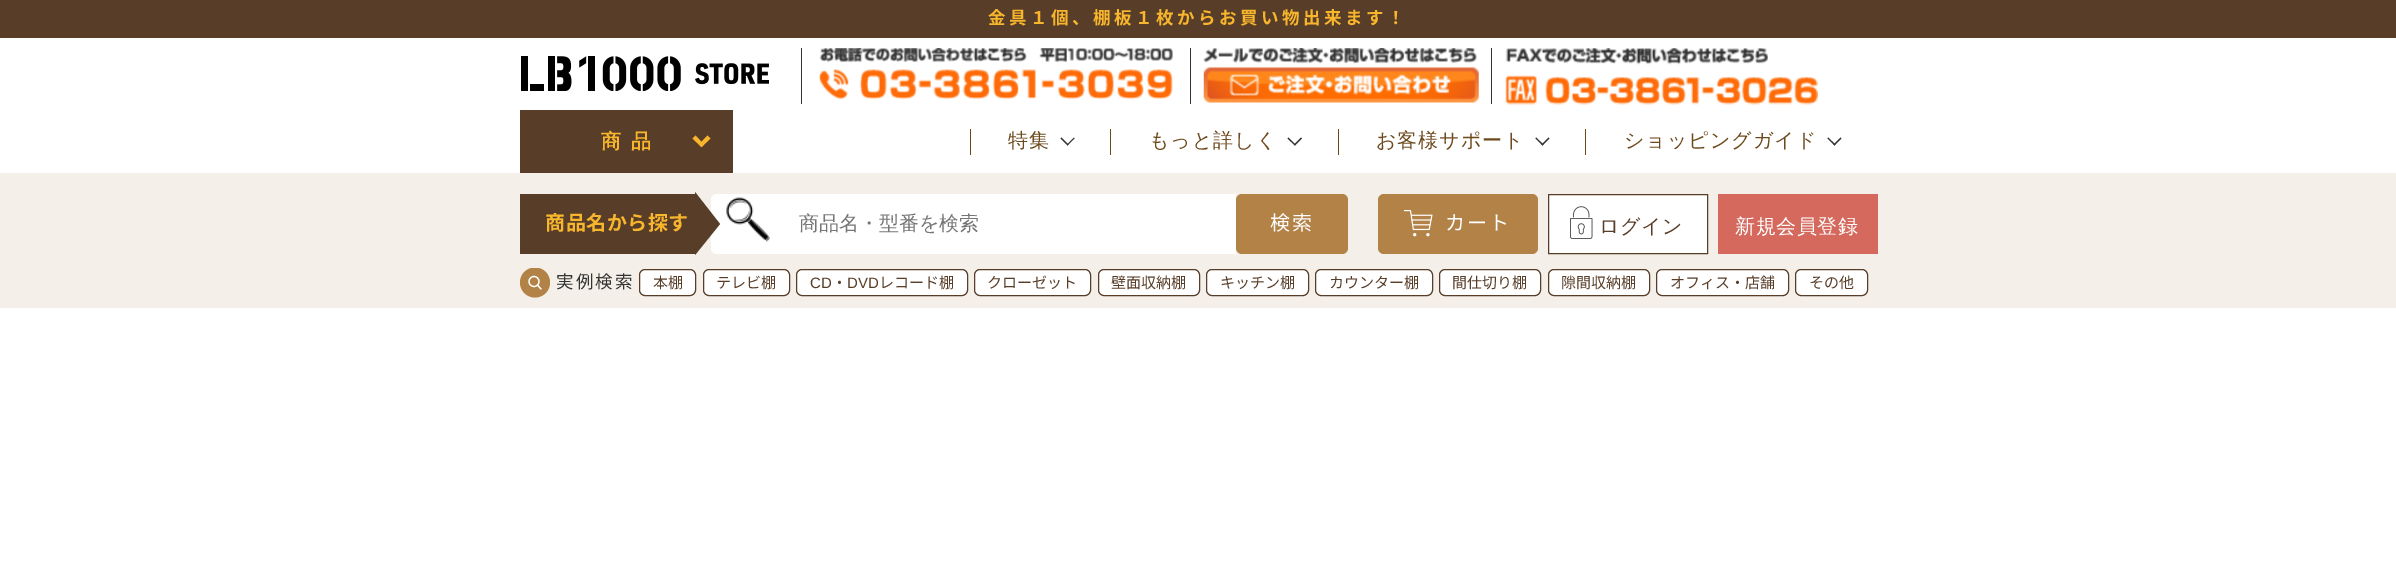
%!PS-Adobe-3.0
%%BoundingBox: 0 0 2396 567
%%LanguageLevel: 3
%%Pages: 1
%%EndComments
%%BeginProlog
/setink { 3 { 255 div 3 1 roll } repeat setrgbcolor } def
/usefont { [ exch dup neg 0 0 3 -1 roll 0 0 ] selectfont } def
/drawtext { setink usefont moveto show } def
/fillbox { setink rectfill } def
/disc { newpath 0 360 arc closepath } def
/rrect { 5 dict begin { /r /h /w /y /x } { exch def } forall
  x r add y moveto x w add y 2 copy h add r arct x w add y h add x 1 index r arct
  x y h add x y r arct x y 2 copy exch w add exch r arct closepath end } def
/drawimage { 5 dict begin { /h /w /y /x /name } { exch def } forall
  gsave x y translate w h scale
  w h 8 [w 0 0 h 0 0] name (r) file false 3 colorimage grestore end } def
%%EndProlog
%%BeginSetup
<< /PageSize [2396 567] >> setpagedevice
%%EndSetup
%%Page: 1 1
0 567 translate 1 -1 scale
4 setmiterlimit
0 0 2396 567 255 255 255 fillbox
0 0 2396 38 88 61 40 fillbox
/NotoSansJP-Bold 17.5 usefont
248 182 45 setink
988 24 moveto 3.5 0 (金具１個、棚板１枚からお買い物出来ます！) ashow
(assets/img1.rgb) 521 56 248 35 drawimage
801 48 1 56 51 51 51 fillbox
(assets/img2.rgb) 819 48 354 52 drawimage
1190 48 1 56 51 51 51 fillbox
(assets/img3.rgb) 1203 48 276 55 drawimage
1491 48 1 56 51 51 51 fillbox
(assets/img4.rgb) 1505 48 313 57 drawimage
520 110 213 63 88 61 40 fillbox
/WenQuanYiZenHei-Bold 20 usefont
248 182 45 setink
601 148 moveto 2 0 (商 品) ashow
707.5 135.5 moveto 710.5 138.5 lineto 701.5 147 lineto 699 144.5 lineto closepath fill
695.5 135.5 moveto 704 144.5 lineto 701.5 147 lineto 692.5 138.5 lineto closepath fill
970 129 1 26 110 73 28 fillbox
/WenQuanYiZenHei-Medium 20 usefont
1008 147 moveto 1 0 (特集) ashow
51 51 51 setink
1074 137.5 moveto 1074.5 138.5 lineto 1067.5 145.5 lineto 1067 144.5 lineto closepath fill
1061.5 137.5 moveto 1068.5 144.5 lineto 1067.5 145.5 lineto 1060.5 138.5 lineto closepath fill
1110 129 1 26 110 73 28 fillbox
1149 147 moveto 1 0 (もっと詳しく) ashow
51 51 51 setink
1301 137.5 moveto 1302 138.5 lineto 1295 145.5 lineto 1294 144.5 lineto closepath fill
1288.5 137.5 moveto 1295.5 144.5 lineto 1295 145.5 lineto 1287.5 138.5 lineto closepath fill
1338 129 1 26 110 73 28 fillbox
1376 147 moveto 1 0 (お客様サポート) ashow
51 51 51 setink
1548.5 137.5 moveto 1549.5 138.5 lineto 1542.5 145.5 lineto 1541.5 144.5 lineto closepath fill
1536 137.5 moveto 1543.5 144.5 lineto 1542.5 145.5 lineto 1535.5 138.5 lineto closepath fill
1585 129 1 26 110 73 28 fillbox
1624 147 moveto 1 0 (ショッピングガイド) ashow
51 51 51 setink
1840.5 137.5 moveto 1841.5 138.5 lineto 1834.5 145.5 lineto 1833.5 144.5 lineto closepath fill
1828 137.5 moveto 1835.5 144.5 lineto 1834.5 145.5 lineto 1827.5 138.5 lineto closepath fill
0 173 2396 135 244 240 233 fillbox
520 194 175 60 88 61 40 fillbox
/NotoSansJP-Bold 20 usefont
248 182 45 setink
545 230 moveto 0.5 0 (商品名から探す) ashow
255 255 255 setink
717 194 moveto 1236 194 lineto 1236 254 lineto 717 254 lineto 713.5 254 711 251.5 711 248 curveto 711 200 lineto 711 196.5 713.5 194 717 194 curveto closepath fill
88 61 40 setink
695 255 moveto 695 192 lineto 720 224 lineto closepath fill
(assets/img5.rgb) 726 197 44 45 drawimage
(商品名・型番を検索) 799 230 /WenQuanYiZenHei-Medium 20 117 117 117 drawtext
178 130 71 setink
1236 194 112 60 6 rrect fill
/NotoSansJP-Regular 20 usefont
255 255 255 setink
1270 230 moveto 2 0 (検索) ashow
178 130 71 setink
1378 194 160 60 6 rrect fill
(assets/img6.rgb) 1404 210 29 27 drawimage
255 255 255 setink
1445 230 moveto 2 0 (カート) ashow
1548.5 194.5 moveto 1707.5 194.5 lineto 1707.5 253.5 lineto 1548.5 253.5 lineto closepath gsave fill grestore
88 61 40 setink
stroke
(assets/img7.rgb) 1570 206 23 33 drawimage
/WenQuanYiZenHei-Medium 20 usefont
1599 233 moveto 0.5 0 (ログイン) ashow
1718 194 160 60 213 105 93 fillbox
255 255 255 setink
1735 233 moveto 0.5 0 (新規会員登録) ashow
gsave
520 268 30 30 rectclip
178 130 71 setink
535 282.5 15 disc fill
grestore
1.2 setlinewidth
534 281.5 5 disc stroke
1 setlinecap
1 setlinejoin
537.5 285 moveto 541 289 lineto stroke
/NotoSansJP-Regular 17.5 usefont
51 51 51 setink
556 288 moveto 2 0 (実例検索) ashow
255 255 255 setink
639.5 269.5 56 26 5.5 rrect gsave fill grestore
88 61 40 setink
1 setlinewidth
0 setlinecap
0 setlinejoin
stroke
(本棚) 653 288 /NotoSansJP-Regular 15 88 61 40 drawtext
255 255 255 setink
703.5 269.5 86 26 5.5 rrect gsave fill grestore
88 61 40 setink
stroke
(テレビ棚) 716 288 /NotoSansJP-Regular 15 88 61 40 drawtext
255 255 255 setink
796.5 269.5 171 26 5.5 rrect gsave fill grestore
88 61 40 setink
stroke
(CD) 810 288 /LiberationSans-Regular 15 88 61 40 drawtext
(・) 832 288 /NotoSansJP-Regular 15 88 61 40 drawtext
(DVD) 847 288 /LiberationSans-Regular 15 88 61 40 drawtext
(レコード棚) 879 288 /NotoSansJP-Regular 15 88 61 40 drawtext
255 255 255 setink
974.5 269.5 116 26 5.5 rrect gsave fill grestore
88 61 40 setink
stroke
(クローゼット) 987 288 /NotoSansJP-Regular 15 88 61 40 drawtext
255 255 255 setink
1098.5 269.5 101 26 5.5 rrect gsave fill grestore
88 61 40 setink
stroke
(壁面収納棚) 1111 288 /NotoSansJP-Regular 15 88 61 40 drawtext
255 255 255 setink
1206.5 269.5 102 26 5.5 rrect gsave fill grestore
88 61 40 setink
stroke
(キッチン棚) 1220 288 /NotoSansJP-Regular 15 88 61 40 drawtext
255 255 255 setink
1315.5 269.5 117 26 5.5 rrect gsave fill grestore
88 61 40 setink
stroke
(カウンター棚) 1329 288 /NotoSansJP-Regular 15 88 61 40 drawtext
255 255 255 setink
1439.5 269.5 101 26 5.5 rrect gsave fill grestore
88 61 40 setink
stroke
(間仕切り棚) 1452 288 /NotoSansJP-Regular 15 88 61 40 drawtext
255 255 255 setink
1548.5 269.5 101 26 5.5 rrect gsave fill grestore
88 61 40 setink
stroke
(隙間収納棚) 1561 288 /NotoSansJP-Regular 15 88 61 40 drawtext
255 255 255 setink
1656.5 269.5 132 26 5.5 rrect gsave fill grestore
88 61 40 setink
stroke
(オフィス・店舗) 1670 288 /NotoSansJP-Regular 15 88 61 40 drawtext
255 255 255 setink
1795.5 269.5 72 26 5.5 rrect gsave fill grestore
88 61 40 setink
stroke
(その他) 1809 288 /NotoSansJP-Regular 15 88 61 40 drawtext
showpage
%%EOF
